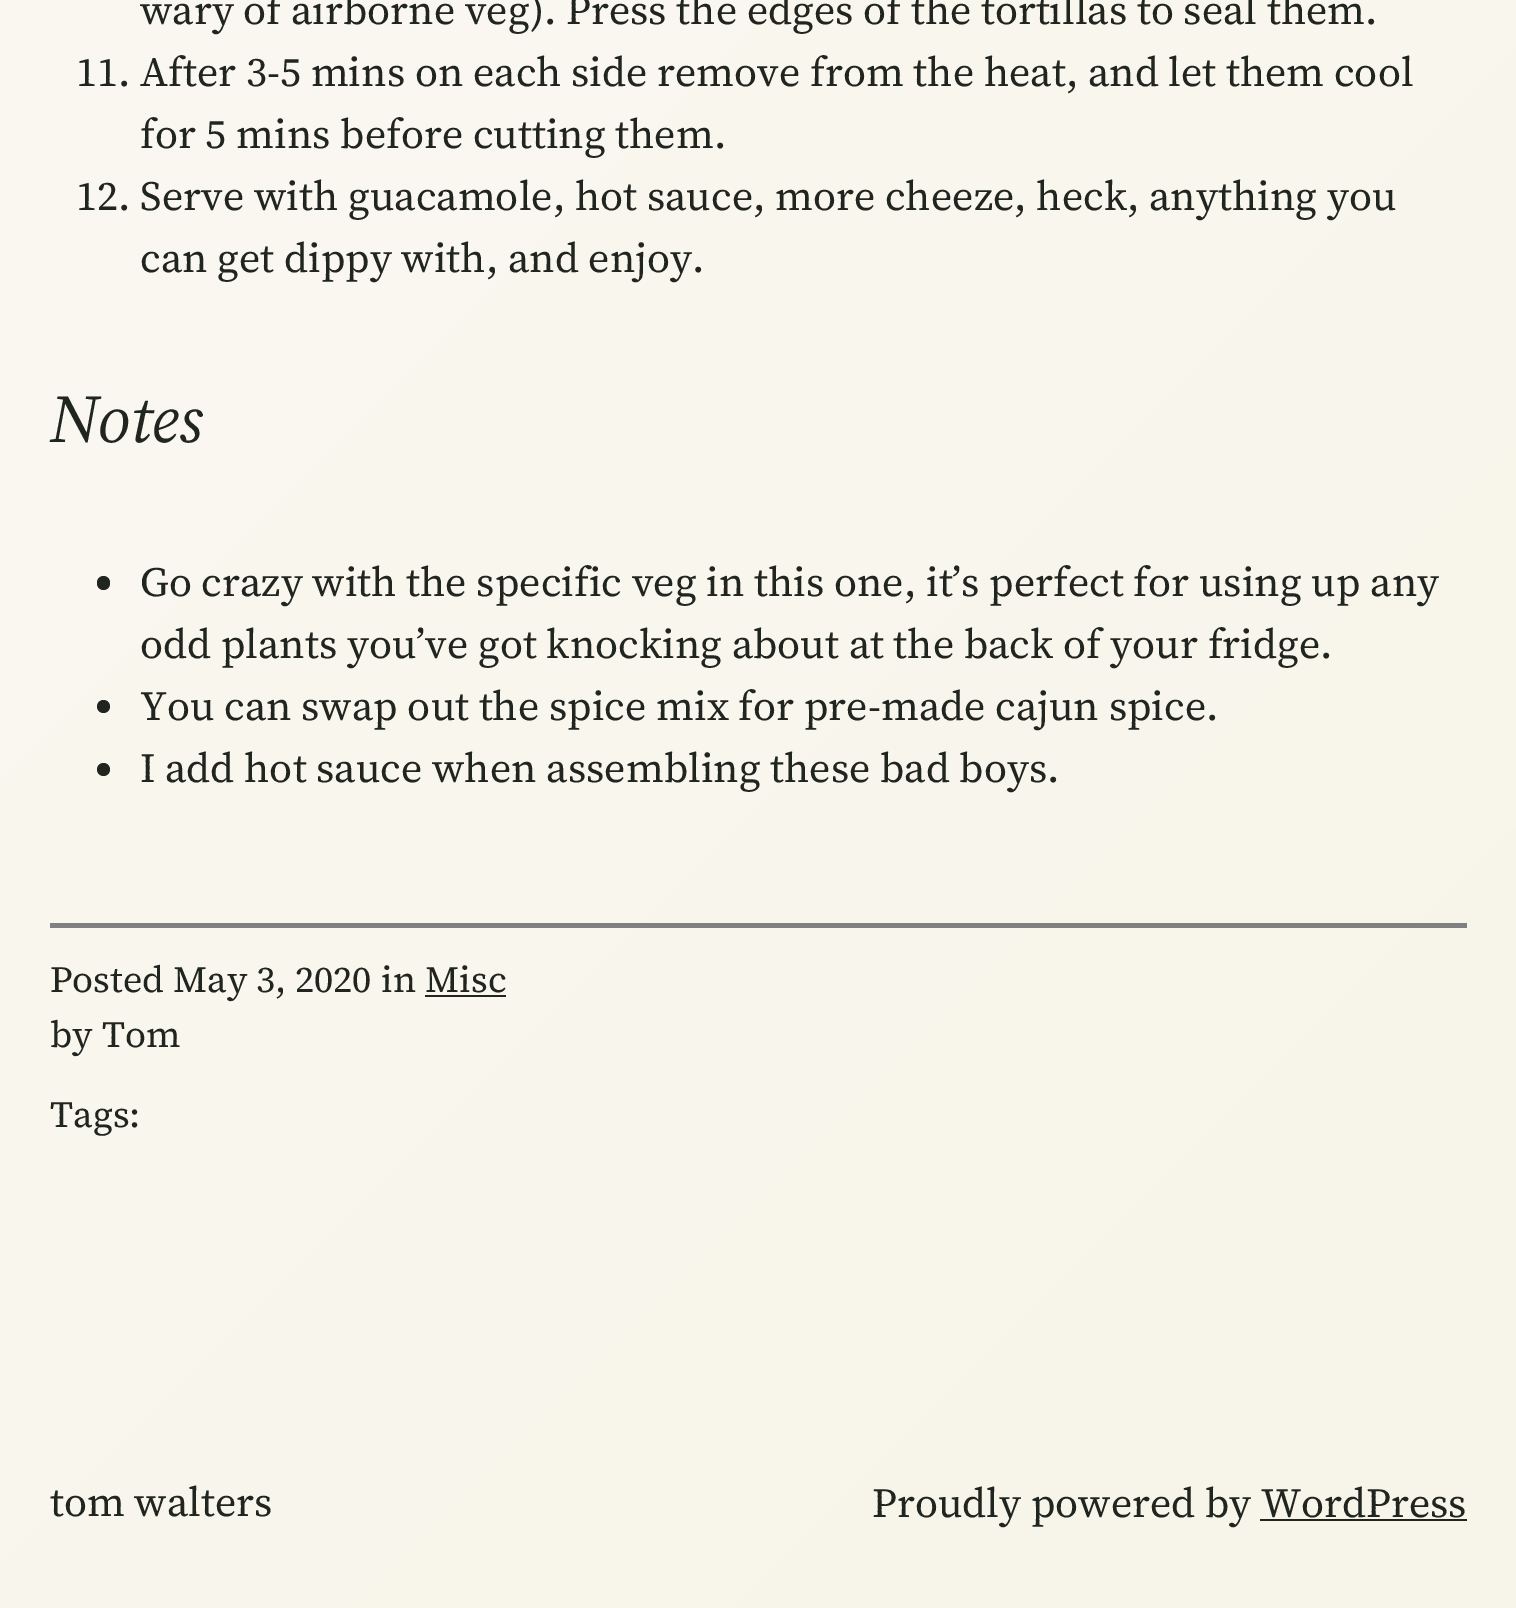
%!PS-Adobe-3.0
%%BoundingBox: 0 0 1516 1608
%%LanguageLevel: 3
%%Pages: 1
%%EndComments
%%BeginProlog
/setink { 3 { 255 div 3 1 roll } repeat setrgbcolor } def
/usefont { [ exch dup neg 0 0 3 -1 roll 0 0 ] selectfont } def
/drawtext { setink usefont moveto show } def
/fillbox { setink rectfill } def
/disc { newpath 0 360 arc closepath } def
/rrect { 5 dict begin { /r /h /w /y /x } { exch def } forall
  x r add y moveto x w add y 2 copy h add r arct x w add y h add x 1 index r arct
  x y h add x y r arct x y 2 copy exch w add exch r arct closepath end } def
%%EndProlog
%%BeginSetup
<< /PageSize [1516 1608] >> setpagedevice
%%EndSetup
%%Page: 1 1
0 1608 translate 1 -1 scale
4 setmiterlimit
0 0 1516 1608 255 255 255 fillbox
gsave 0 0 moveto 1516 0 lineto 1516 1608 lineto 0 1608 lineto closepath clip newpath
<< /ShadingType 2 /ColorSpace /DeviceRGB /Coords [-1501 -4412 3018 107] /Extend [true true] /Function << /FunctionType 2 /Domain [0 1] /C0 [1 1 1] /C1 [0.969 0.957 0.914] /N 1 >> >> shfill grestore
(wary of airborne veg\). Press the edges of the tortillas to seal them.) 140 24 /SourceSerif4-Regular 41.4 33 37 31 drawtext
(11. After 3-5 mins on each side remove from the heat, and let them cool) 76 86 /SourceSerif4-Regular 41.4 33 37 31 drawtext
(for 5 mins before cutting them.) 140 148 /SourceSerif4-Regular 41.4 33 37 31 drawtext
(12. Serve with guacamole, hot sauce, more cheeze, heck, anything you) 76 210 /SourceSerif4-Regular 41.4 33 37 31 drawtext
(can get dippy with, and enjoy.) 140 272 /SourceSerif4-Regular 41.4 33 37 31 drawtext
(Notes) 50 442 /SourceSerif4-Italic 68 33 37 31 drawtext
97 576 13 14 6.5 rrect fill
(Go crazy with the specific veg in this one, it’s perfect for using up any) 140 596 /SourceSerif4-Regular 41.4 33 37 31 drawtext
(odd plants you’ve got knocking about at the back of your fridge.) 140 658 /SourceSerif4-Regular 41.4 33 37 31 drawtext
103.5 706.5 6.5 disc fill
(You can swap out the spice mix for pre-made cajun spice.) 140 720 /SourceSerif4-Regular 41.4 33 37 31 drawtext
103.5 769.5 6.5 disc fill
(I add hot sauce when assembling these bad boys.) 140 782 /SourceSerif4-Regular 41.4 33 37 31 drawtext
50 923 1417 5 128 128 128 fillbox
(Posted) 50 992 /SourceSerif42-Regular 37 33 37 31 drawtext
(May 3, 2020) 173 992 /SourceSerif42-Regular 37 33 37 31 drawtext
(in) 381 992 /SourceSerif42-Regular 37 33 37 31 drawtext
(Misc) 425 992 /SourceSerif42-Regular 37 33 37 31 drawtext
425 995 81 2 33 37 31 fillbox
(by) 50 1047 /SourceSerif42-Regular 37 33 37 31 drawtext
(Tom) 102 1047 /SourceSerif42-Regular 37 33 37 31 drawtext
(Tags:) 50 1127 /SourceSerif42-Regular 37 33 37 31 drawtext
(tom walters) 50 1516 /SourceSerif4-Regular 41.4 33 37 31 drawtext
(Proudly powered by WordPress) 872 1517 /SourceSerif4-Regular 41.4 33 37 31 drawtext
1260 1519 207 2 33 37 31 fillbox
showpage
%%EOF
